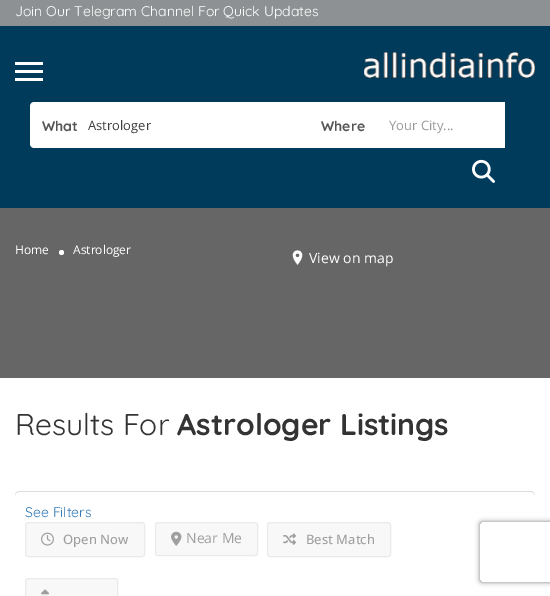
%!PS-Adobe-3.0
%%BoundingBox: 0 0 550 596
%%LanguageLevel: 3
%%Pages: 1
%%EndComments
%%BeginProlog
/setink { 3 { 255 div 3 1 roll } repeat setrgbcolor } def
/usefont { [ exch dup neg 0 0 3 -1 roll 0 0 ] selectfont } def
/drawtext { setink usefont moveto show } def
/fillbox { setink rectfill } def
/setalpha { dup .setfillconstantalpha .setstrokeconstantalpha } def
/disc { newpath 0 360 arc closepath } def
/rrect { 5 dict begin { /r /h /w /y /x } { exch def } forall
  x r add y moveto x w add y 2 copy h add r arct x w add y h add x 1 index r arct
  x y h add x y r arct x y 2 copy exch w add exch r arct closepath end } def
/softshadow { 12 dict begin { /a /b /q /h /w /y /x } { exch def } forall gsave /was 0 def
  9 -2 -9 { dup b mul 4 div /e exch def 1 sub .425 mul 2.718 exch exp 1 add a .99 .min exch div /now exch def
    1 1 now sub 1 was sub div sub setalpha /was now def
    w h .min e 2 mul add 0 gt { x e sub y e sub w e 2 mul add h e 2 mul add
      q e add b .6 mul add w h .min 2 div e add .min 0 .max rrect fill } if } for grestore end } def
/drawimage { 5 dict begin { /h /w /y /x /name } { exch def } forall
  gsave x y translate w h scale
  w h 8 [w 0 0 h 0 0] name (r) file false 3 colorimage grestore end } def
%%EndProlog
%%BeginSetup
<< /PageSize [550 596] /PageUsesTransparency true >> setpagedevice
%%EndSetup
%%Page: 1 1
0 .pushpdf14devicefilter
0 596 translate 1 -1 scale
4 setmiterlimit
0 0 550 596 255 255 255 fillbox
0 0 550 26 142 145 147 fillbox
(Join Our Telegram Channel For Quick Updates) 15 16 /Quicksand-Regular 14 255 255 255 drawtext
0 26 550 182 0 59 92 fillbox
15 62 28 3 255 255 255 fillbox
15 70 28 3 255 255 255 fillbox
15 78 28 3 255 255 255 fillbox
(assets/img1.rgb) 364 52 171 26 drawimage
34 102 moveto 309 102 lineto 309 148 lineto 34 148 lineto 32 148 30 146 30 144 curveto 30 106 lineto 30 104 32 102 34 102 curveto closepath fill
(What) 42 131 /Quicksand-Bold 14 85 85 85 drawtext
(Astrologer) 88 130 /OpenSans-Regular 13 62 62 62 drawtext
309 102 196 46 255 255 255 fillbox
(Where) 321 131 /Quicksand-Bold 14 85 85 85 drawtext
(Your City...) 389 130 /OpenSans-Regular 13 153 153 153 drawtext
(assets/img2.rgb) 472 159 23 24 drawimage
0 208 550 170 102 102 102 fillbox
(Home) 15 254 /OpenSans-Regular 12 255 255 255 drawtext
61.5 252.5 2.5 disc fill
(Astrologer) 73 254 /OpenSans-Regular 12 255 255 255 drawtext
(assets/img3.rgb) 292 250 11 15 drawimage
(View on map) 309 263 /OpenSans-Regular 14 255 255 255 drawtext
(Results For) 15 435 /Quicksand-Regular 30 51 51 51 drawtext
(Astrologer Listings) 177 435 /Quicksand-Bold 30 51 51 51 drawtext
222 222 222 setink
20 491 moveto 17 491 15 493 15 496 curveto 15 494 17 492 20 492 curveto 530 492 lineto 533 492 535 494 535 496 curveto 535 493 533 491 530 491 curveto closepath fill
(See Filters) 25 517 /Quicksand-Regular 14 51 122 183 drawtext
248 248 248 setink
25.5 522.5 119 34 2.5 rrect gsave fill grestore
234 234 234 setink
stroke
(assets/img4.rgb) 41 532 13 14 drawimage
(Open Now) 63 544 /OpenSans-Medium 13 159 159 159 drawtext
248 248 248 setink
155.5 522.5 102 33 2.5 rrect gsave fill grestore
234 234 234 setink
stroke
(assets/img5.rgb) 171 531 11 15 drawimage
(Near Me) 186 543 /OpenSans-Regular 14 159 159 159 drawtext
248 248 248 setink
267.5 522.5 123 34 2.5 rrect gsave fill grestore
234 234 234 setink
stroke
(assets/img6.rgb) 283 533 13 12 drawimage
(Best Match) 306 544 /OpenSans-Medium 13 159 159 159 drawtext
248 248 248 setink
25.5 578.5 92 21 2.5 rrect gsave fill grestore
234 234 234 setink
stroke
(assets/img7.rgb) 41 589 9 7 drawimage
gsave
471 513 moveto 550 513 lineto 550 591 lineto 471 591 lineto closepath 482 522 moveto 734 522 lineto 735 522 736 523 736 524 curveto 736 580 lineto 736 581 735 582 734 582 curveto 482 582 lineto 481 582 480 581 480 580 curveto 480 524 lineto 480 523 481 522 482 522 curveto closepath eoclip newpath
128 128 128 setink
480 522 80 60 2 2.5 1 softshadow
grestore
.poppdf14devicefilter showpage
%%EOF
